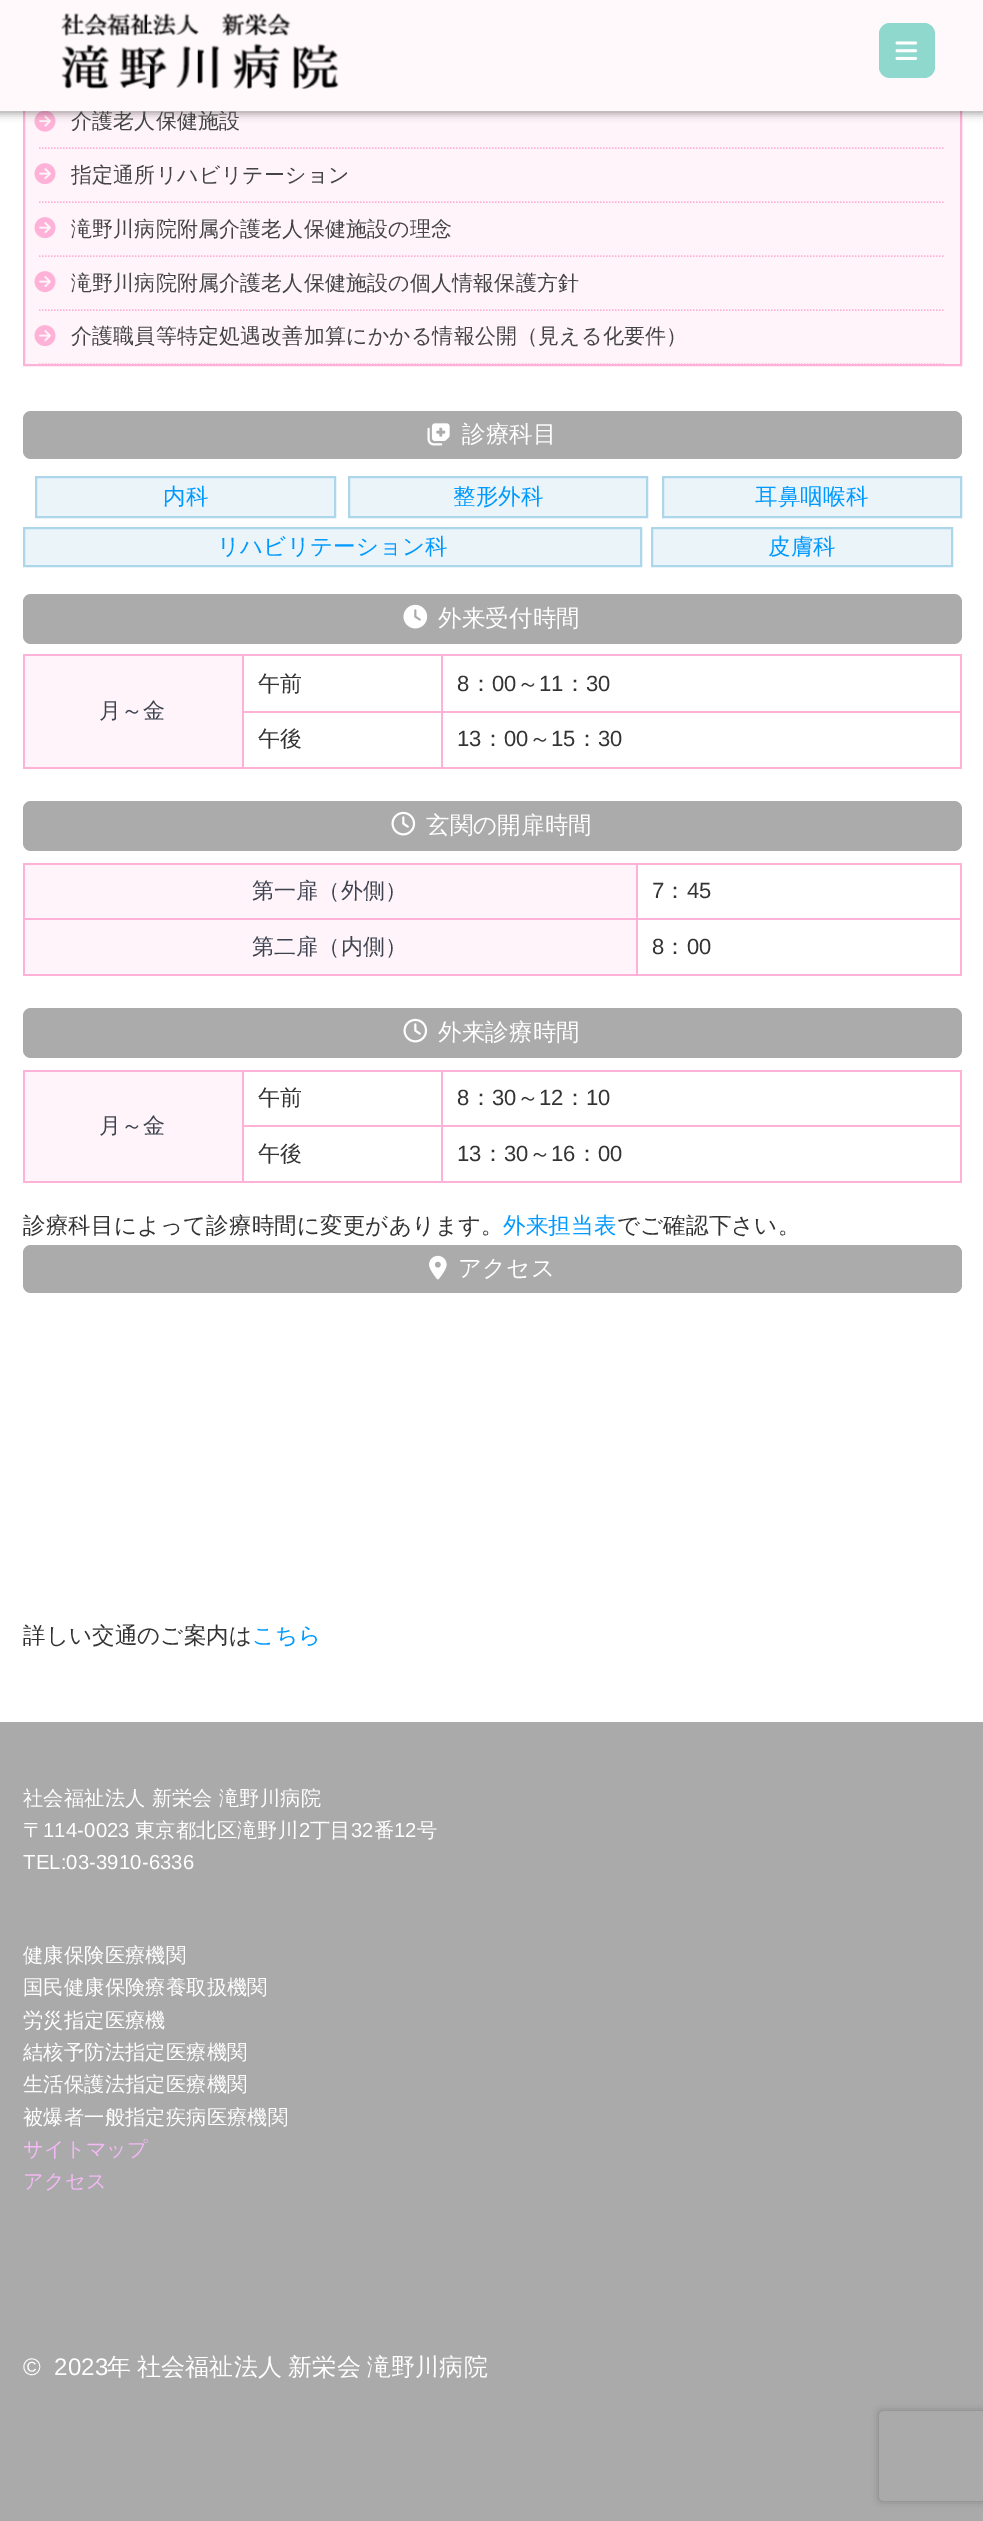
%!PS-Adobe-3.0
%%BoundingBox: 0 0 983 2521
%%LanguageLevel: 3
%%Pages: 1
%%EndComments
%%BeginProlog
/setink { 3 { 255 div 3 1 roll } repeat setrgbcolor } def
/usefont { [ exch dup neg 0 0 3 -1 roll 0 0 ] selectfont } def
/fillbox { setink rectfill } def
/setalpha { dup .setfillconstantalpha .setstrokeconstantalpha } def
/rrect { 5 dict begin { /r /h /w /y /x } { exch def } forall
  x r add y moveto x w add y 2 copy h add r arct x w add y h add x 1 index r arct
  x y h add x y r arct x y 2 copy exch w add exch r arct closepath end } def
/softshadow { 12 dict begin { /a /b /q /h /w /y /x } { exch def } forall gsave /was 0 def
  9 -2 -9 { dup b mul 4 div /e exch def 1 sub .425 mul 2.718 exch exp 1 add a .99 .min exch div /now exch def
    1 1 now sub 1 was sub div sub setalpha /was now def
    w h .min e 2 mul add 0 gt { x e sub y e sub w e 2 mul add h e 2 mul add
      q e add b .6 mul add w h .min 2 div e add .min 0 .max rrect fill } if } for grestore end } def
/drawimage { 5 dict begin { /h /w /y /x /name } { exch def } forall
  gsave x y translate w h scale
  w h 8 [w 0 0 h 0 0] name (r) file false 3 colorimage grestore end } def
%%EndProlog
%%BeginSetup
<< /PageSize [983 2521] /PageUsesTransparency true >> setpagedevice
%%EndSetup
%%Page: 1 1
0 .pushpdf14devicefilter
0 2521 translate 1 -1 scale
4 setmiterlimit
0 0 983 2521 255 255 255 fillbox
25 111 935 253 255 244 249 fillbox
255 178 216 setink
2 setlinewidth
24 96 937 269 rectstroke
(assets/img3.rgb) 34 111 22 21 drawimage
0 0 0 setink
-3 -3 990 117 0 4 0.33 softshadow
/WenQuanYiZenHei-Medium 21 usefont
68 68 68 setink
71 128 moveto 0.15 0 (介護老人保健施設) ashow
0 0 983 111 255 249 252 fillbox
(assets/img1.rgb) 61 13 278 77 drawimage
143 216 206 setink
879 23 56 55 11 rrect fill
(assets/img2.rgb) 895 41 23 19 drawimage
255 178 216 setink
1.5 setlinewidth
[1.5 1.5] 0 setdash
39 148 moveto 945 148 lineto stroke
39 202 moveto 945 202 lineto stroke
(assets/img4.rgb) 34 163 22 22 drawimage
68 68 68 setink
71 182 moveto 0.15 0 (指定通所リハビリテーション) ashow
255 178 216 setink
39 256 moveto 945 256 lineto stroke
(assets/img4.rgb) 34 217 22 22 drawimage
68 68 68 setink
71 236 moveto 0.15 0 (滝野川病院附属介護老人保健施設の理念) ashow
255 178 216 setink
39 310 moveto 945 310 lineto stroke
(assets/img4.rgb) 34 271 22 22 drawimage
68 68 68 setink
71 290 moveto 0.15 0 (滝野川病院附属介護老人保健施設の個人情報保護方針) ashow
255 178 216 setink
39 364 moveto 945 364 lineto stroke
(assets/img4.rgb) 34 325 22 22 drawimage
68 68 68 setink
71 343 moveto 0.15 0 (介護職員等特定処遇改善加算にかかる情報公開（見える化要件）) ashow
171 171 171 setink
23 411 939 48 8 rrect fill
(assets/img5.rgb) 427 423 23 23 drawimage
/WenQuanYiZenHei-Medium 23.5 usefont
255 255 255 setink
462 442 moveto 0.15 0 (診療科目) ashow
234 244 249 setink
36 477 moveto 335 477 lineto 335 517 lineto 36 517 lineto closepath gsave fill grestore
173 214 234 setink
2 setlinewidth
[] 0 setdash
stroke
/WenQuanYiZenHei-Medium 22.5 usefont
0 153 255 setink
163 504 moveto 0.15 0 (内科) ashow
234 244 249 setink
349 477 moveto 647 477 lineto 647 517 lineto 349 517 lineto closepath gsave fill grestore
173 214 234 setink
stroke
0 153 255 setink
453 504 moveto 0.15 0 (整形外科) ashow
234 244 249 setink
663 477 moveto 961 477 lineto 961 517 lineto 663 517 lineto closepath gsave fill grestore
173 214 234 setink
stroke
0 153 255 setink
755 504 moveto 0.15 0 (耳鼻咽喉科) ashow
234 244 249 setink
24 528 moveto 641 528 lineto 641 566 lineto 24 566 lineto closepath gsave fill grestore
173 214 234 setink
stroke
0 153 255 setink
217 554 moveto 0.15 0 (リハビリテーション科) ashow
234 244 249 setink
652 528 moveto 952 528 lineto 952 566 lineto 652 566 lineto closepath gsave fill grestore
173 214 234 setink
stroke
0 153 255 setink
768 554 moveto 0.15 0 (皮膚科) ashow
171 171 171 setink
23 594 939 50 8 rrect fill
(assets/img6.rgb) 403 604 25 25 drawimage
/WenQuanYiZenHei-Medium 23.5 usefont
255 255 255 setink
438 626 moveto 0.15 0 (外来受付時間) ashow
23 654 939 2 255 178 216 fillbox
960 654 2 114 255 178 216 fillbox
23 767 939 2 255 178 216 fillbox
23 654 2 114 255 178 216 fillbox
441 711 2 57 255 178 216 fillbox
441 711 521 2 255 178 216 fillbox
441 654 2 59 255 178 216 fillbox
242 711 201 2 255 178 216 fillbox
/WenQuanYiZenHei-Medium 22 usefont
51 51 51 setink
258 691 moveto 0.15 0 (午前) ashow
/LiberationSans-Regular 22 usefont
457 691 moveto 0.15 0 (8) ashow
/WenQuanYiZenHei-Medium 22 usefont
470 691 moveto 0.15 0 (：) ashow
/LiberationSans-Regular 22 usefont
492 691 moveto 0.15 0 (00) ashow
/WenQuanYiZenHei-Medium 22 usefont
517 691 moveto 0.15 0 (～) ashow
/LiberationSans-Regular 22 usefont
539 691 moveto 0.15 0 (11) ashow
/WenQuanYiZenHei-Medium 22 usefont
564 691 moveto 0.15 0 (：) ashow
/LiberationSans-Regular 22 usefont
586 691 moveto 0.15 0 (30) ashow
25 656 217 111 255 244 249 fillbox
242 654 2 114 255 178 216 fillbox
/WenQuanYiZenHei-Medium 22 usefont
60 66 79 setink
99 718 moveto 0.15 0 (月～金) ashow
51 51 51 setink
258 746 moveto 0.15 0 (午後) ashow
/LiberationSans-Regular 22 usefont
457 746 moveto 0.15 0 (13) ashow
/WenQuanYiZenHei-Medium 22 usefont
482 746 moveto 0.15 0 (：) ashow
/LiberationSans-Regular 22 usefont
504 746 moveto 0.15 0 (00) ashow
/WenQuanYiZenHei-Medium 22 usefont
529 746 moveto 0.15 0 (～) ashow
/LiberationSans-Regular 22 usefont
551 746 moveto 0.15 0 (15) ashow
/WenQuanYiZenHei-Medium 22 usefont
576 746 moveto 0.15 0 (：) ashow
/LiberationSans-Regular 22 usefont
598 746 moveto 0.15 0 (30) ashow
171 171 171 setink
23 801 939 50 8 rrect fill
(assets/img7.rgb) 391 811 25 25 drawimage
/WenQuanYiZenHei-Medium 23.5 usefont
255 255 255 setink
426 833 moveto 0.15 0 (玄関の開扉時間) ashow
23 863 939 2 255 178 216 fillbox
960 863 2 112 255 178 216 fillbox
23 974 939 2 255 178 216 fillbox
23 863 2 112 255 178 216 fillbox
25 865 611 53 255 244 249 fillbox
636 918 2 57 255 178 216 fillbox
636 918 326 2 255 178 216 fillbox
636 863 2 57 255 178 216 fillbox
23 918 615 2 255 178 216 fillbox
/WenQuanYiZenHei-Medium 22 usefont
60 66 79 setink
252 898 moveto 0.15 0 (第一扉（外側）) ashow
/LiberationSans-Regular 22 usefont
51 51 51 setink
652 898 moveto 0.15 0 (7) ashow
/WenQuanYiZenHei-Medium 22 usefont
664 898 moveto 0.15 0 (：) ashow
/LiberationSans-Regular 22 usefont
687 898 moveto 0.15 0 (45) ashow
25 920 611 54 255 244 249 fillbox
/WenQuanYiZenHei-Medium 22 usefont
60 66 79 setink
252 954 moveto 0.15 0 (第二扉（内側）) ashow
/LiberationSans-Regular 22 usefont
51 51 51 setink
652 954 moveto 0.15 0 (8) ashow
/WenQuanYiZenHei-Medium 22 usefont
664 954 moveto 0.15 0 (：) ashow
/LiberationSans-Regular 22 usefont
687 954 moveto 0.15 0 (00) ashow
171 171 171 setink
23 1008 939 50 8 rrect fill
(assets/img7.rgb) 403 1018 25 25 drawimage
/WenQuanYiZenHei-Medium 23.5 usefont
255 255 255 setink
438 1040 moveto 0.15 0 (外来診療時間) ashow
23 1070 939 2 255 178 216 fillbox
960 1070 2 112 255 178 216 fillbox
23 1181 939 2 255 178 216 fillbox
23 1070 2 112 255 178 216 fillbox
441 1125 2 57 255 178 216 fillbox
441 1125 521 2 255 178 216 fillbox
441 1070 2 57 255 178 216 fillbox
242 1125 201 2 255 178 216 fillbox
/WenQuanYiZenHei-Medium 22 usefont
51 51 51 setink
258 1105 moveto 0.15 0 (午前) ashow
/LiberationSans-Regular 22 usefont
457 1105 moveto 0.15 0 (8) ashow
/WenQuanYiZenHei-Medium 22 usefont
470 1105 moveto 0.15 0 (：) ashow
/LiberationSans-Regular 22 usefont
492 1105 moveto 0.15 0 (30) ashow
/WenQuanYiZenHei-Medium 22 usefont
517 1105 moveto 0.15 0 (～) ashow
/LiberationSans-Regular 22 usefont
539 1105 moveto 0.15 0 (12) ashow
/WenQuanYiZenHei-Medium 22 usefont
564 1105 moveto 0.15 0 (：) ashow
/LiberationSans-Regular 22 usefont
586 1105 moveto 0.15 0 (10) ashow
25 1072 217 109 255 244 249 fillbox
242 1070 2 112 255 178 216 fillbox
/WenQuanYiZenHei-Medium 22 usefont
60 66 79 setink
99 1133 moveto 0.15 0 (月～金) ashow
51 51 51 setink
258 1161 moveto 0.15 0 (午後) ashow
/LiberationSans-Regular 22 usefont
457 1161 moveto 0.15 0 (13) ashow
/WenQuanYiZenHei-Medium 22 usefont
482 1161 moveto 0.15 0 (：) ashow
/LiberationSans-Regular 22 usefont
504 1161 moveto 0.15 0 (30) ashow
/WenQuanYiZenHei-Medium 22 usefont
529 1161 moveto 0.15 0 (～) ashow
/LiberationSans-Regular 22 usefont
551 1161 moveto 0.15 0 (16) ashow
/WenQuanYiZenHei-Medium 22 usefont
576 1161 moveto 0.15 0 (：) ashow
/LiberationSans-Regular 22 usefont
598 1161 moveto 0.15 0 (00) ashow
/WenQuanYiZenHei-Medium 22.5 usefont
23 1233 moveto 0.15 0 (診療科目によって診療時間に変更があります。) ashow
0 153 255 setink
503 1233 moveto 0.15 0 (外来担当表) ashow
51 51 51 setink
617 1233 moveto 0.15 0 (でご確認下さい。) ashow
171 171 171 setink
23 1245 939 48 8 rrect fill
(assets/img8.rgb) 429 1255 18 25 drawimage
/WenQuanYiZenHei-Medium 23.5 usefont
255 255 255 setink
458 1276 moveto 0.15 0 (アクセス) ashow
/WenQuanYiZenHei-Medium 22.5 usefont
51 51 51 setink
23 1643 moveto 0.15 0 (詳しい交通のご案内は) ashow
0 153 255 setink
252 1643 moveto 0.15 0 (こちら) ashow
0 1722 983 799 170 170 170 fillbox
/WenQuanYiZenHei-Medium 20.25 usefont
255 255 255 setink
23 1805 moveto 0.15 0 (社会福祉法人 新栄会 滝野川病院) ashow
23 1837 moveto 0.15 0 (〒) ashow
/LiberationSans-Regular 20.25 usefont
43 1837 moveto 0.15 0 (114-0023) ashow
/WenQuanYiZenHei-Medium 20.25 usefont
135 1837 moveto 0.15 0 (東京都北区滝野川) ashow
/LiberationSans-Regular 20.25 usefont
299 1837 moveto 0.15 0 (2) ashow
/WenQuanYiZenHei-Medium 20.25 usefont
310 1837 moveto 0.15 0 (丁目) ashow
/LiberationSans-Regular 20.25 usefont
351 1837 moveto 0.15 0 (32) ashow
/WenQuanYiZenHei-Medium 20.25 usefont
374 1837 moveto 0.15 0 (番) ashow
/LiberationSans-Regular 20.25 usefont
394 1837 moveto 0.15 0 (12) ashow
/WenQuanYiZenHei-Medium 20.25 usefont
417 1837 moveto 0.15 0 (号) ashow
/LiberationSans-Regular 20.25 usefont
23 1869 moveto 0.15 0 (TEL:03-3910-6336) ashow
/WenQuanYiZenHei-Medium 20.25 usefont
23 1962 moveto 0.15 0 (健康保険医療機関) ashow
23 1994 moveto 0.15 0 (国民健康保険療養取扱機関) ashow
23 2027 moveto 0.15 0 (労災指定医療機) ashow
23 2059 moveto 0.15 0 (結核予防法指定医療機関) ashow
23 2091 moveto 0.15 0 (生活保護法指定医療機関) ashow
23 2124 moveto 0.15 0 (被爆者一般指定疾病医療機関) ashow
244 185 247 setink
23 2156 moveto 0.15 0 (サイトマップ) ashow
23 2188 moveto 0.15 0 (アクセス) ashow
/LiberationSans-Regular 24 usefont
255 255 255 setink
23 2375 moveto 0.15 0 (©  2023) ashow
/WenQuanYiZenHei-Medium 24 usefont
107 2375 moveto 0.15 0 (年) ashow
137 2375 moveto -1 0 32 0.15 0 (社会福祉法人 新栄会 滝野川病院) awidthshow
gsave
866 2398 moveto 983 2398 lineto 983 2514 lineto 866 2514 lineto closepath 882 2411 moveto 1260 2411 lineto 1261.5 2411 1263 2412.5 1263 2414 curveto 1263 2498 lineto 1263 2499.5 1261.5 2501 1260 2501 curveto 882 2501 lineto 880.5 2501 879 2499.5 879 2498 curveto 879 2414 lineto 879 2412.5 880.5 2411 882 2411 curveto closepath eoclip newpath
128 128 128 setink
879 2411 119 90 3 4 1 softshadow
grestore
.poppdf14devicefilter showpage
%%EOF
